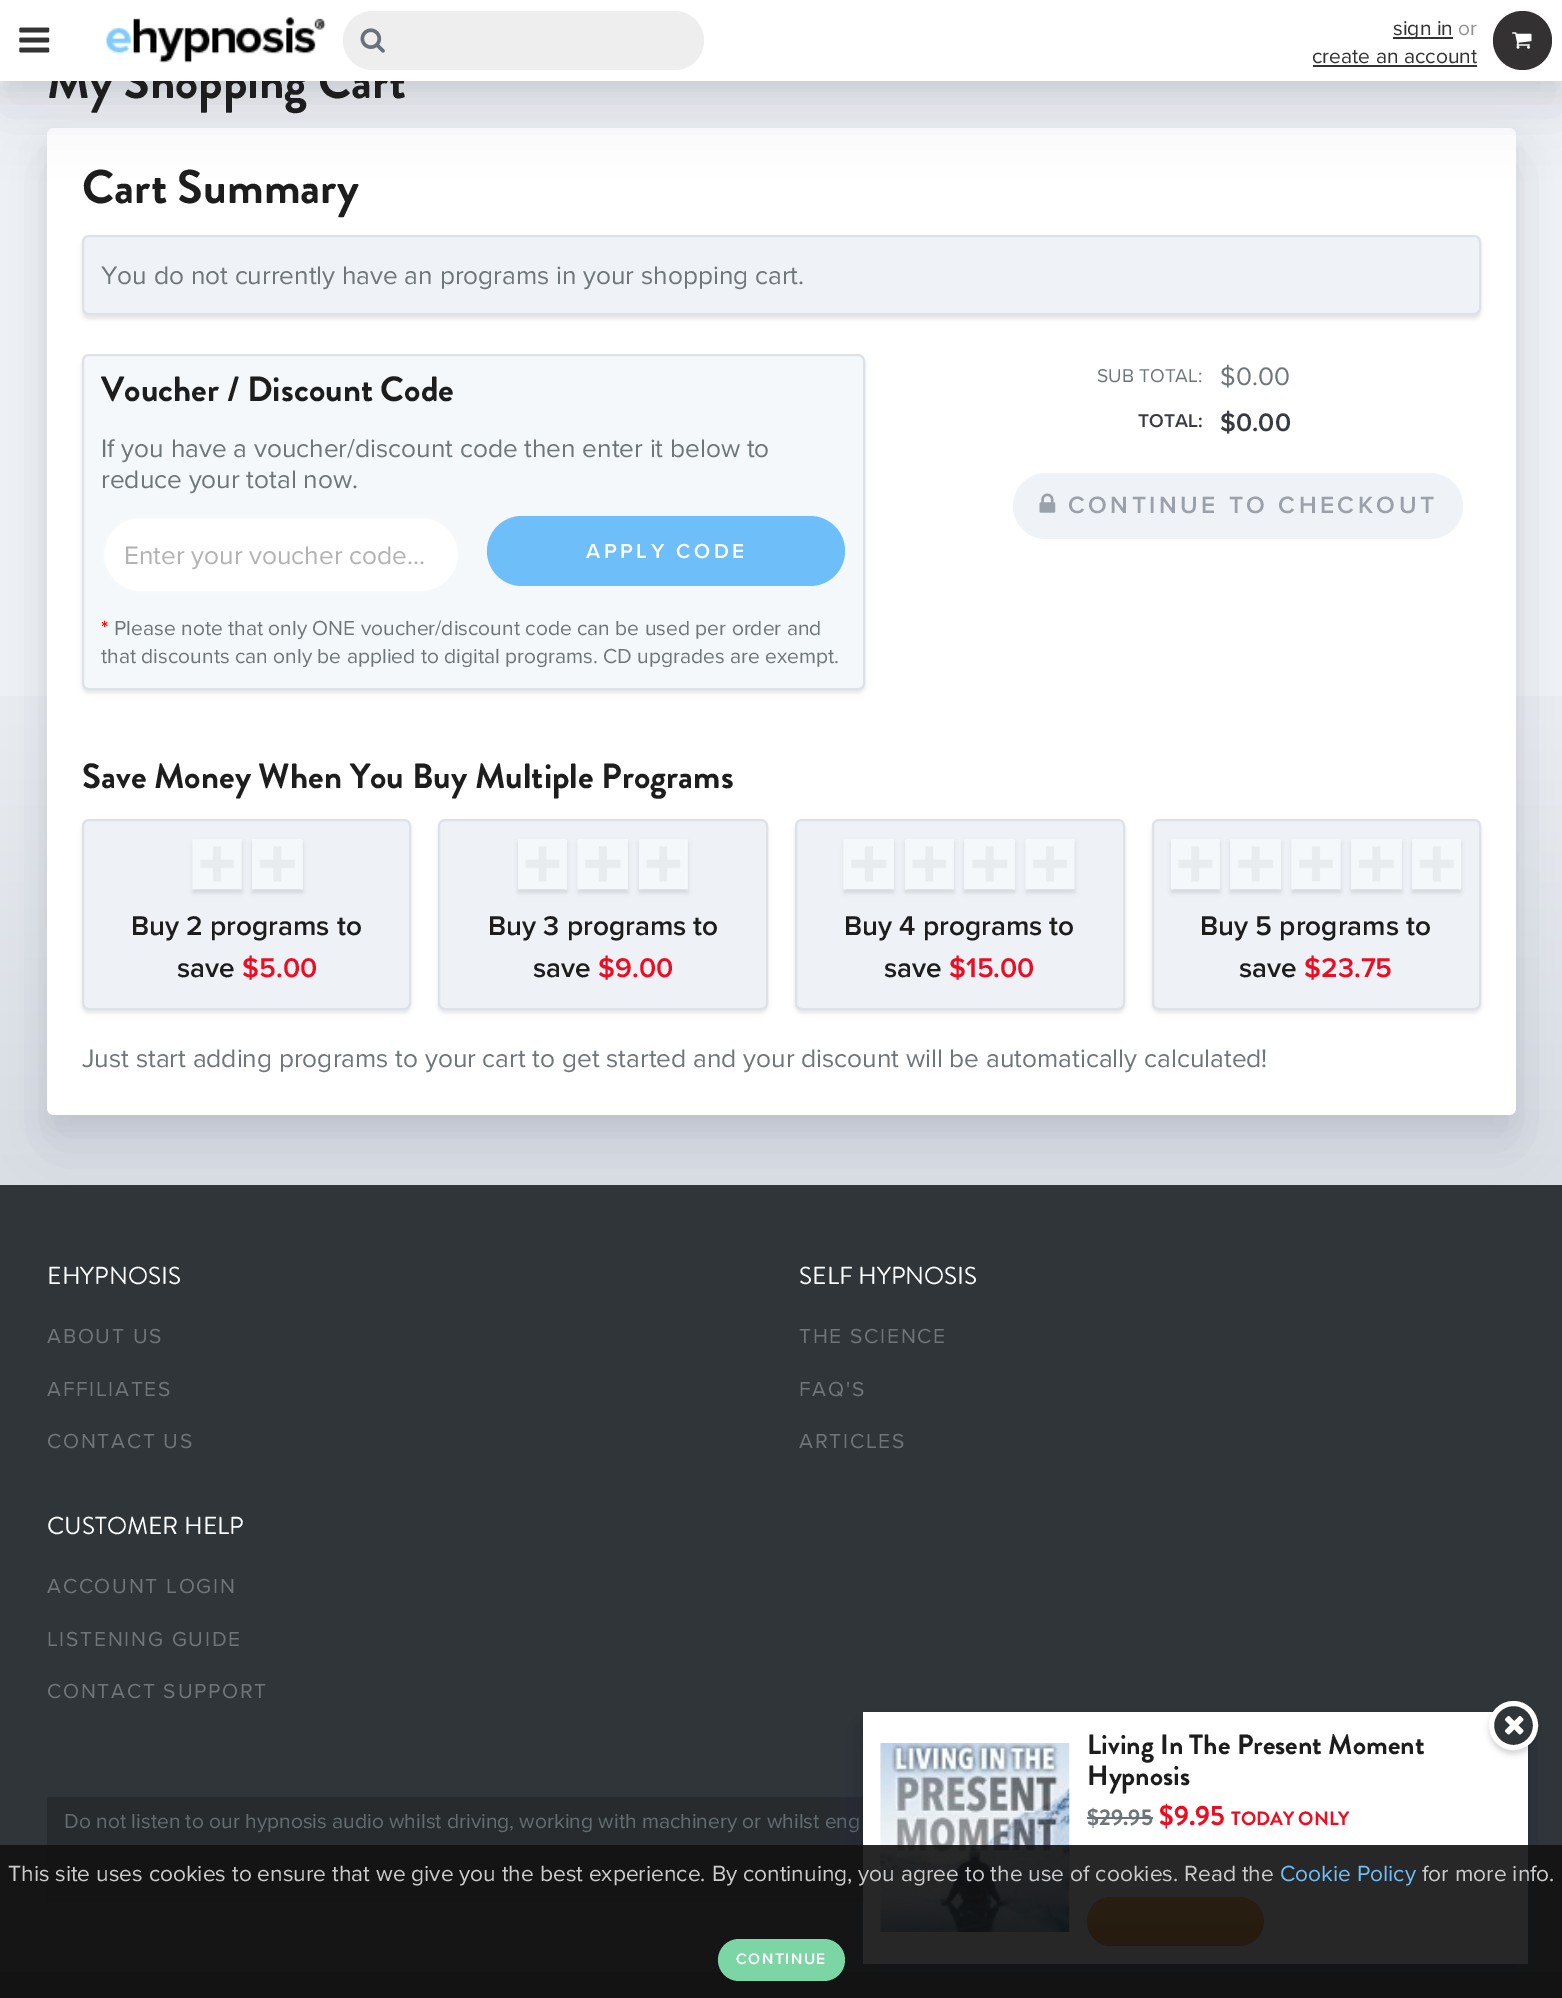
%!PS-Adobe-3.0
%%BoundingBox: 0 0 1562 1998
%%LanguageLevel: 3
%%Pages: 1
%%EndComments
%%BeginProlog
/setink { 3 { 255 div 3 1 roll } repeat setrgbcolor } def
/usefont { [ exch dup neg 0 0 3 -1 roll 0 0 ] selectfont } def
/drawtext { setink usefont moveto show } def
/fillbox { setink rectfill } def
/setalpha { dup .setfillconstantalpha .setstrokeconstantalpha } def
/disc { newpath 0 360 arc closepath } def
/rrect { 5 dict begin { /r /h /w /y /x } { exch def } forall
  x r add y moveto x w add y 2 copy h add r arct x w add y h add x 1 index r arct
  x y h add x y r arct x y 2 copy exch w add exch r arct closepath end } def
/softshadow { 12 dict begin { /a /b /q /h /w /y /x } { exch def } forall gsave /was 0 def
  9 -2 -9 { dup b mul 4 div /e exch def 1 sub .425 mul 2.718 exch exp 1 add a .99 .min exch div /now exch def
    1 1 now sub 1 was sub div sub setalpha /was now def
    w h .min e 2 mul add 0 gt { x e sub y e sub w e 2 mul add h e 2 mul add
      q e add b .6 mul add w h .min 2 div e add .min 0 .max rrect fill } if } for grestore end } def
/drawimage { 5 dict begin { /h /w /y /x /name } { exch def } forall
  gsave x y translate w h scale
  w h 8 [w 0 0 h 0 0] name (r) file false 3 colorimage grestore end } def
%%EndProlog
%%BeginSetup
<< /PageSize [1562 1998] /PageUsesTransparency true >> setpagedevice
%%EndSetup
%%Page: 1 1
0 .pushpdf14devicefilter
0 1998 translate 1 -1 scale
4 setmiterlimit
0 0 1562 1998 29 29 29 fillbox
0 81 1562 615 239 242 246 fillbox
(assets/img5.rgb) 0 696 1562 489 drawimage
0 0 0 setink
47 142 1469 987 7 13 0.07 softshadow
0 1185 1562 787 47 53 56 fillbox
50 50 93 setink
47 159 1469 987 7 30.5 0.1 softshadow
255 255 255 setink
47 128 1469 987 7 rrect fill
0 0 0 setink
0 14 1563 81 0 13 0.07 softshadow
50 50 93 setink
0 32 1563 80 0 30.5 0.1 softshadow
(My Shopping Cart) 47 98 /BrandonGrotesque-Bold 49 29 29 29 drawtext
0 0 1562 81 255 255 255 fillbox
(assets/img1.rgb) 19 27 31 26 drawimage
(assets/img2.rgb) 106 17 220 46 drawimage
238 238 238 setink
343 11 361 59 29.5 rrect fill
(assets/img3.rgb) 360 28 25 25 drawimage
1393 37 60 2 51 51 51 fillbox
(sign in) 1393 35 /ProximaNova-Regular 21 51 51 51 drawtext
(or) 1458 35 /ProximaNova-Regular 21 151 147 147 drawtext
(create an account) 1312 63 /ProximaNova-Regular 21 51 51 51 drawtext
1313 65 164 2 51 51 51 fillbox
51 49 49 setink
1522.5 40.5 29.5 disc fill
(assets/img4.rgb) 1512 32 20 17 drawimage
(Cart Summary) 82 203 /BrandonGrotesque-Bold 47.25 29 29 29 drawtext
0 0 0 setink
82 238 1399 81 7 2 0.1 softshadow
239 242 246 setink
83 236 1397 78 6 rrect gsave fill grestore
221 226 232 setink
2 setlinewidth
stroke
(You do not currently have an programs in your shopping cart.) 101 284 /ProximaNova-Regular 26.25 111 118 122 drawtext
0 0 0 setink
82 357 783 336 7 2 0.1 softshadow
244 248 251 setink
83 355 781 334 6 rrect gsave fill grestore
221 226 232 setink
stroke
(Voucher / Discount Code) 101 401 /BrandonGrotesque-Bold 35 29 29 29 drawtext
(If you have a voucher/discount code then enter it below to) 101 457 /ProximaNova-Regular 26.25 111 118 122 drawtext
(reduce your total now.) 101 488 /ProximaNova-Regular 26.25 111 118 122 drawtext
255 255 255 setink
103 517 356 75 37.5 rrect gsave fill grestore
245 249 252 setink
stroke
(Enter your voucher code...) 124 564 /ProximaNova-Regular 26.25 179 179 179 drawtext
110 191 249 setink
487 516 358 70 35 rrect fill
/ProximaNova-SemiBold 21 usefont
255 255 255 setink
586 558 moveto 3.5 0 (APPLY CODE) ashow
(*) 101 635 /ProximaNova-SemiBold 21 255 0 0 drawtext
(Please note that only ONE voucher/discount code can be used per order and) 114 635 /ProximaNova-Regular 21 111 118 122 drawtext
(that discounts can only be applied to digital programs. CD upgrades are exempt.) 101 663 /ProximaNova-Regular 21 111 118 122 drawtext
(SUB TOTAL:) 1097 382 /ProximaNova-Regular 19.25 111 118 122 drawtext
($0.00) 1220 385 /ProximaNova-Regular 26.25 111 118 122 drawtext
(TOTAL:) 1138 427 /ProximaNova-SemiBold 19.25 56 59 66 drawtext
($0.00) 1220 431 /ProximaNova-SemiBold 26.25 56 59 66 drawtext
239 242 246 setink
1013 473 450 66 33 rrect fill
(assets/img6.rgb) 1039 493 17 20 drawimage
/ProximaNova-SemiBold 24.5 usefont
154 161 170 setink
1068 513 moveto 3.5 0 (CONTINUE TO CHECKOUT) ashow
(Save Money When You Buy Multiple Programs) 82 788 /BrandonGrotesque-Bold 35 29 29 29 drawtext
0 0 0 setink
82 823 329 190 7 2 0.1 softshadow
238 241 245 setink
83 820 327 189 6 rrect gsave fill grestore
221 226 232 setink
stroke
0 0 0 setink
193 842 49 51 0 2 0.1 softshadow
(assets/img7.rgb) 192 839 50 51 drawimage
252 842 51 51 0 2 0.1 softshadow
(assets/img8.rgb) 252 839 51 51 drawimage
(Buy 2 programs to) 131 935 /ProximaNova-SemiBold 28 29 29 29 drawtext
(save) 177 977 /ProximaNova-SemiBold 28 29 29 29 drawtext
($5.00) 242 977 /ProximaNova-SemiBold 28 237 12 33 drawtext
0 0 0 setink
438 823 330 190 7 2 0.1 softshadow
238 241 245 setink
439 820 328 189 6 rrect gsave fill grestore
221 226 232 setink
stroke
0 0 0 setink
518 842 49 51 0 2 0.1 softshadow
(assets/img9.rgb) 518 839 49 51 drawimage
578 842 50 51 0 2 0.1 softshadow
(assets/img10.rgb) 577 839 51 51 drawimage
639 842 49 51 0 2 0.1 softshadow
(assets/img11.rgb) 639 839 49 51 drawimage
(Buy 3 programs to) 488 935 /ProximaNova-SemiBold 28 29 29 29 drawtext
(save) 533 977 /ProximaNova-SemiBold 28 29 29 29 drawtext
($9.00) 598 977 /ProximaNova-SemiBold 28 237 12 33 drawtext
0 0 0 setink
795 823 330 190 7 2 0.1 softshadow
238 241 245 setink
796 820 328 189 6 rrect gsave fill grestore
221 226 232 setink
stroke
0 0 0 setink
844 842 50 51 0 2 0.1 softshadow
(assets/img10.rgb) 843 839 51 51 drawimage
905 842 49 51 0 2 0.1 softshadow
(assets/img11.rgb) 905 839 49 51 drawimage
964 842 51 51 0 2 0.1 softshadow
(assets/img12.rgb) 964 839 51 51 drawimage
1026 842 49 51 0 2 0.1 softshadow
(assets/img7.rgb) 1025 839 50 51 drawimage
(Buy 4 programs to) 844 935 /ProximaNova-SemiBold 28 29 29 29 drawtext
(save) 884 977 /ProximaNova-SemiBold 28 29 29 29 drawtext
($15.00) 949 977 /ProximaNova-SemiBold 28 237 12 33 drawtext
0 0 0 setink
1152 823 329 190 7 2 0.1 softshadow
238 241 245 setink
1153 820 327 189 6 rrect gsave fill grestore
221 226 232 setink
stroke
0 0 0 setink
1171 842 49 51 0 2 0.1 softshadow
(assets/img11.rgb) 1171 839 49 51 drawimage
1230 842 51 51 0 2 0.1 softshadow
(assets/img12.rgb) 1230 839 51 51 drawimage
1292 842 49 51 0 2 0.1 softshadow
(assets/img7.rgb) 1291 839 50 51 drawimage
1351 842 51 51 0 2 0.1 softshadow
(assets/img8.rgb) 1351 839 51 51 drawimage
1412 842 49 51 0 2 0.1 softshadow
(assets/img13.rgb) 1412 839 49 51 drawimage
(Buy 5 programs to) 1200 935 /ProximaNova-SemiBold 28 29 29 29 drawtext
(save) 1239 977 /ProximaNova-SemiBold 28 29 29 29 drawtext
($23.75) 1304 977 /ProximaNova-SemiBold 28 237 12 33 drawtext
(Just start adding programs to your cart to get started and your discount will be automatically calculated!) 82 1067 /ProximaNova-Regular 26.25 111 118 122 drawtext
(EHYPNOSIS) 47 1284 /BrandonGrotesque-Regular 24.5 255 255 255 drawtext
/ProximaNova-Regular 21 usefont
111 118 122 setink
47 1343 moveto 1.75 0 (ABOUT US) ashow
47 1396 moveto 1.75 0 (AFFILIATES) ashow
47 1448 moveto 1.75 0 (CONTACT US) ashow
(SELF HYPNOSIS) 799 1284 /BrandonGrotesque-Regular 24.5 255 255 255 drawtext
/ProximaNova-Regular 21 usefont
111 118 122 setink
799 1343 moveto 1.75 0 (THE SCIENCE) ashow
799 1396 moveto 1.75 0 (FAQ'S) ashow
799 1448 moveto 1.75 0 (ARTICLES) ashow
(CUSTOMER HELP) 47 1534 /BrandonGrotesque-Regular 24.5 255 255 255 drawtext
/ProximaNova-Regular 21 usefont
111 118 122 setink
47 1593 moveto 1.75 0 (ACCOUNT LOGIN) ashow
47 1646 moveto 1.75 0 (LISTENING GUIDE) ashow
47 1698 moveto 1.75 0 (CONTACT SUPPORT) ashow
47 1797 816 105 39 43 45 fillbox
(Do not listen to our hypnosis audio whilst driving, working with machinery or whilst eng) 64 1828 /ProximaNova-Regular 21 98 108 113 drawtext
0 0 0 setink
863 1726 665 252 0 13 0.2 softshadow
50 50 93 setink
863 1743 665 252 0 30.5 0.3 softshadow
863 1712 665 252 255 255 255 fillbox
(assets/img14.rgb) 880 1743 190 189 drawimage
(Living In The Present Moment) 1087 1754 /BrandonGrotesque-Bold 28 29 29 29 drawtext
(Hypnosis) 1087 1785 /BrandonGrotesque-Bold 28 29 29 29 drawtext
($29.95) 1087 1825 /BrandonGrotesque-Bold 22.75 111 118 122 drawtext
1087 1817 66 2 106 113 122 fillbox
($9.95) 1159 1825 /BrandonGrotesque-Bold 28 237 12 33 drawtext
(TODAY ONLY) 1231 1825 /BrandonGrotesque-Bold 19.25 237 12 33 drawtext
255 114 0 setink
1087 1897 177 49 24.5 rrect fill
(assets/img15.rgb) 1086 1897 178 49 drawimage
0 0 0 setink
1489 1705 49 49 24.5 2.5 0.07 softshadow
50 50 93 setink
1489 1705 49 49 24.5 2.5 0.1 softshadow
47 53 56 setink
1513.5 1725.5 22 disc gsave fill grestore
255 255 255 setink
5 setlinewidth
stroke
(assets/img16.rgb) 1505 1716 19 19 drawimage
0.91 setalpha
0 1845 1562 153 18 18 18 fillbox
1 setalpha
(This site uses cookies to ensure that we give you the best experience. By continuing, you agree to the use of cookies. Read the) 8 1881 /ProximaNova-Regular 22.75 204 204 204 drawtext
(Cookie Policy) 1280 1881 /ProximaNova-Regular 22.75 110 191 249 drawtext
(for more info.) 1422 1881 /ProximaNova-Regular 22.75 204 204 204 drawtext
123 213 165 setink
718 1939 127 42 21 rrect fill
/ProximaNova-SemiBold 15.75 usefont
255 255 255 setink
736 1964 moveto 1.5 0 (CONTINUE) ashow
.poppdf14devicefilter showpage
%%EOF
